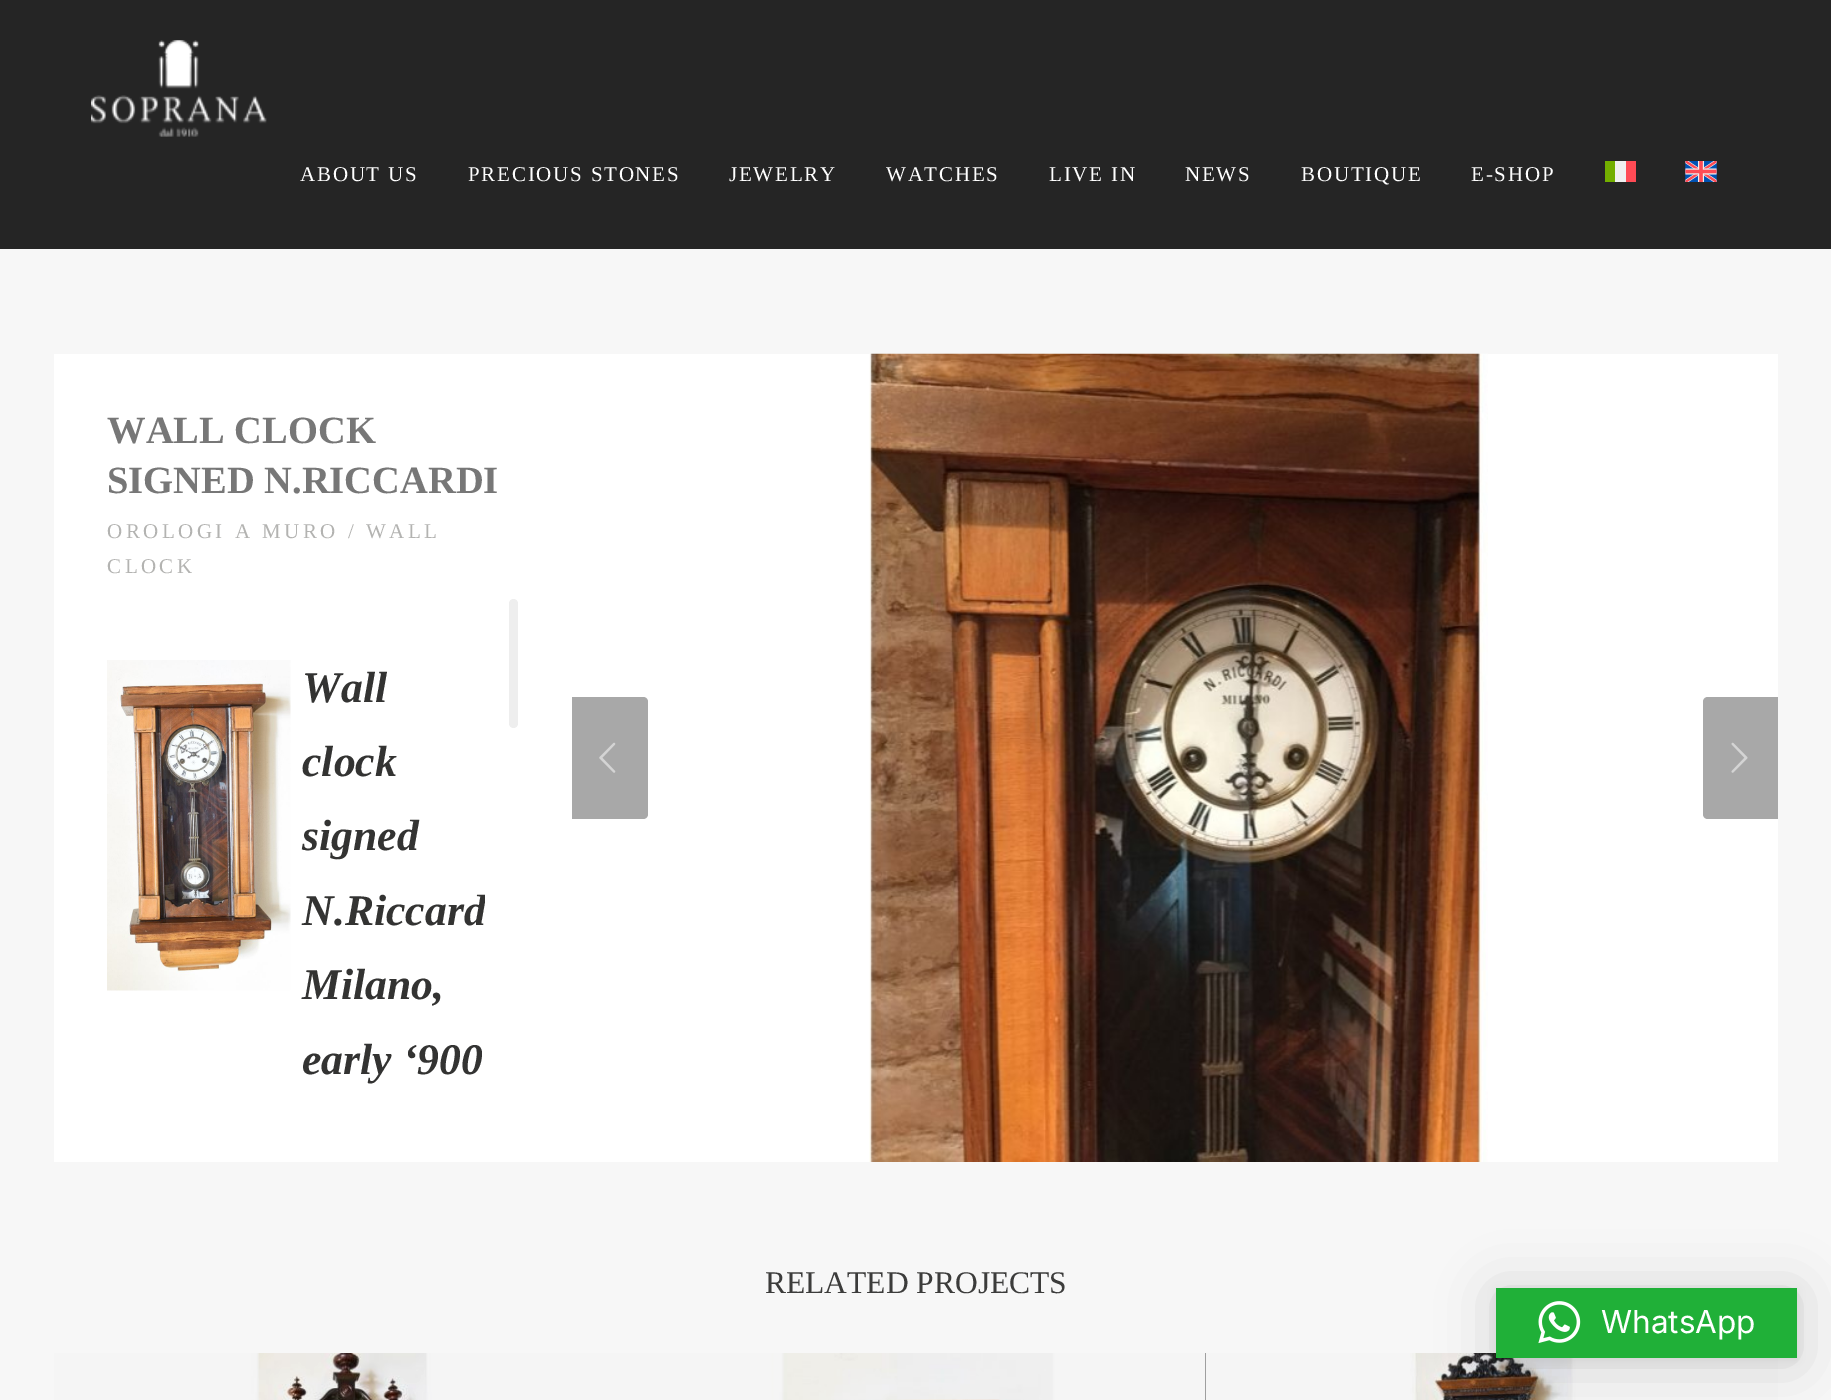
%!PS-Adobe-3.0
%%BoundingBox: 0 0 1831 1400
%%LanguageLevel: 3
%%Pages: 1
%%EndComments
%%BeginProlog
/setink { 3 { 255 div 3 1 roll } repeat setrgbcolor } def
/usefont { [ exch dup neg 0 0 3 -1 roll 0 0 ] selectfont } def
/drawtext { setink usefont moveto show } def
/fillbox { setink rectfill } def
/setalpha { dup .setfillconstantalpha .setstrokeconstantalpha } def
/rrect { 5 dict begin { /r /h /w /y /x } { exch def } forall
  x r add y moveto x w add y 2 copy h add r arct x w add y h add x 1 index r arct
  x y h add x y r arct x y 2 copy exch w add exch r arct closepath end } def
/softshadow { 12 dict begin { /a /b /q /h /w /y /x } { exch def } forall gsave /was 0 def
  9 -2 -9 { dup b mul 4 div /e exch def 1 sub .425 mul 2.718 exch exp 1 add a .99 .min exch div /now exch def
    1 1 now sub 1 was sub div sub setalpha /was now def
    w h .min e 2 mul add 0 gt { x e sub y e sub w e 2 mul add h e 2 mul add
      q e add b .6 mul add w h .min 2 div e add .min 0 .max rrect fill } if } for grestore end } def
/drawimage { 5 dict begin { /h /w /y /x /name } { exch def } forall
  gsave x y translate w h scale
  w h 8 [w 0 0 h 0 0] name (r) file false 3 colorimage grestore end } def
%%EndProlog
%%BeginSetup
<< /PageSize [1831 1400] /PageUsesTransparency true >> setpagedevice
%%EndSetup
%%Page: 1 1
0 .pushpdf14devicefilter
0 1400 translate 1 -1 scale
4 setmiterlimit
0 0 1831 1400 247 247 247 fillbox
0 0 1831 249 37 37 37 fillbox
(assets/img1.rgb) 91 40 176 97 drawimage
/LiberationSerif-Regular 21 usefont
255 255 255 setink
300 181 moveto 1.75 0 (ABOUT US) ashow
468 181 moveto 1.75 0 (PRECIOUS STONES) ashow
729 181 moveto 1.75 0 (JEWELRY) ashow
886 181 moveto 1.75 0 (WATCHES) ashow
1049 181 moveto 1.75 0 (LIVE IN) ashow
1185 181 moveto 1.75 0 (NEWS) ashow
1301 181 moveto 1.75 0 (BOUTIQUE) ashow
1471 181 moveto 1.75 0 (E-SHOP) ashow
1605 161 10 21 115 175 0 fillbox
1615 161 11 21 240 240 240 fillbox
1626 161 10 21 255 75 85 fillbox
(assets/img2.rgb) 1685 161 32 21 drawimage
54 354 1724 808 255 255 255 fillbox
(WALL CLOCK) 107 443 /LiberationSerif-Bold 38.5 119 119 119 drawtext
(SIGNED N.RICCARDI) 107 493 /LiberationSerif-Bold 38.5 119 119 119 drawtext
/LiberationSerif-Regular 21 usefont
179 179 177 setink
107 538 moveto 3.5 0 (OROLOGI A MURO / WALL) ashow
107 573 moveto 3.5 0 (CLOCK) ashow
(assets/img3.rgb) 107 660 184 331 drawimage
(Wall) 302 702 /LiberationSerif-BoldItalic 43.75 51 51 50 drawtext
(clock) 302 776 /LiberationSerif-BoldItalic 43.75 51 51 50 drawtext
(signed) 302 850 /LiberationSerif-BoldItalic 43.75 51 51 50 drawtext
gsave
107 634 378 511 rectclip
(N.Riccard) 302 925 /LiberationSerif-BoldItalic 43.75 51 51 50 drawtext
grestore
(Milano,) 302 999 /LiberationSerif-BoldItalic 43.75 51 51 50 drawtext
(early ‘900) 302 1074 /LiberationSerif-BoldItalic 43.75 51 51 50 drawtext
238 238 238 setink
509 599 9 129 4.5 rrect fill
168 168 168 setink
572 697 moveto 643 697 lineto 646 697 648 699 648 702 curveto 648 814 lineto 648 817 646 819 643 819 curveto 572 819 lineto closepath fill
(assets/img4.rgb) 599 742 17 31 drawimage
(assets/img5.rgb) 869 353 619 809 drawimage
1708 697 moveto 1778 697 lineto 1778 819 lineto 1708 819 lineto 1705 819 1703 817 1703 814 curveto 1703 702 lineto 1703 699 1705 697 1708 697 curveto closepath fill
(assets/img6.rgb) 1731 742 17 31 drawimage
(RELATED PROJECTS) 765 1293 /LiberationSerif-Regular 31.5 60 60 59 drawtext
(assets/img7.rgb) 54 1353 576 47 drawimage
630 1353 576 47 47 47 47 fillbox
(assets/img8.rgb) 630 1353 576 47 drawimage
(assets/img9.rgb) 1206 1353 572 47 drawimage
0 0 0 setink
1496 1292 301 70 0 28 0.16 softshadow
1496 1290 301 70 0 5 0.06 softshadow
1496 1288 301 70 32 176 56 fillbox
(assets/img10.rgb) 1538 1301 43 43 drawimage
(WhatsApp) 1601 1333 /Inter-Regular 31.5 255 255 255 drawtext
.poppdf14devicefilter showpage
%%EOF
